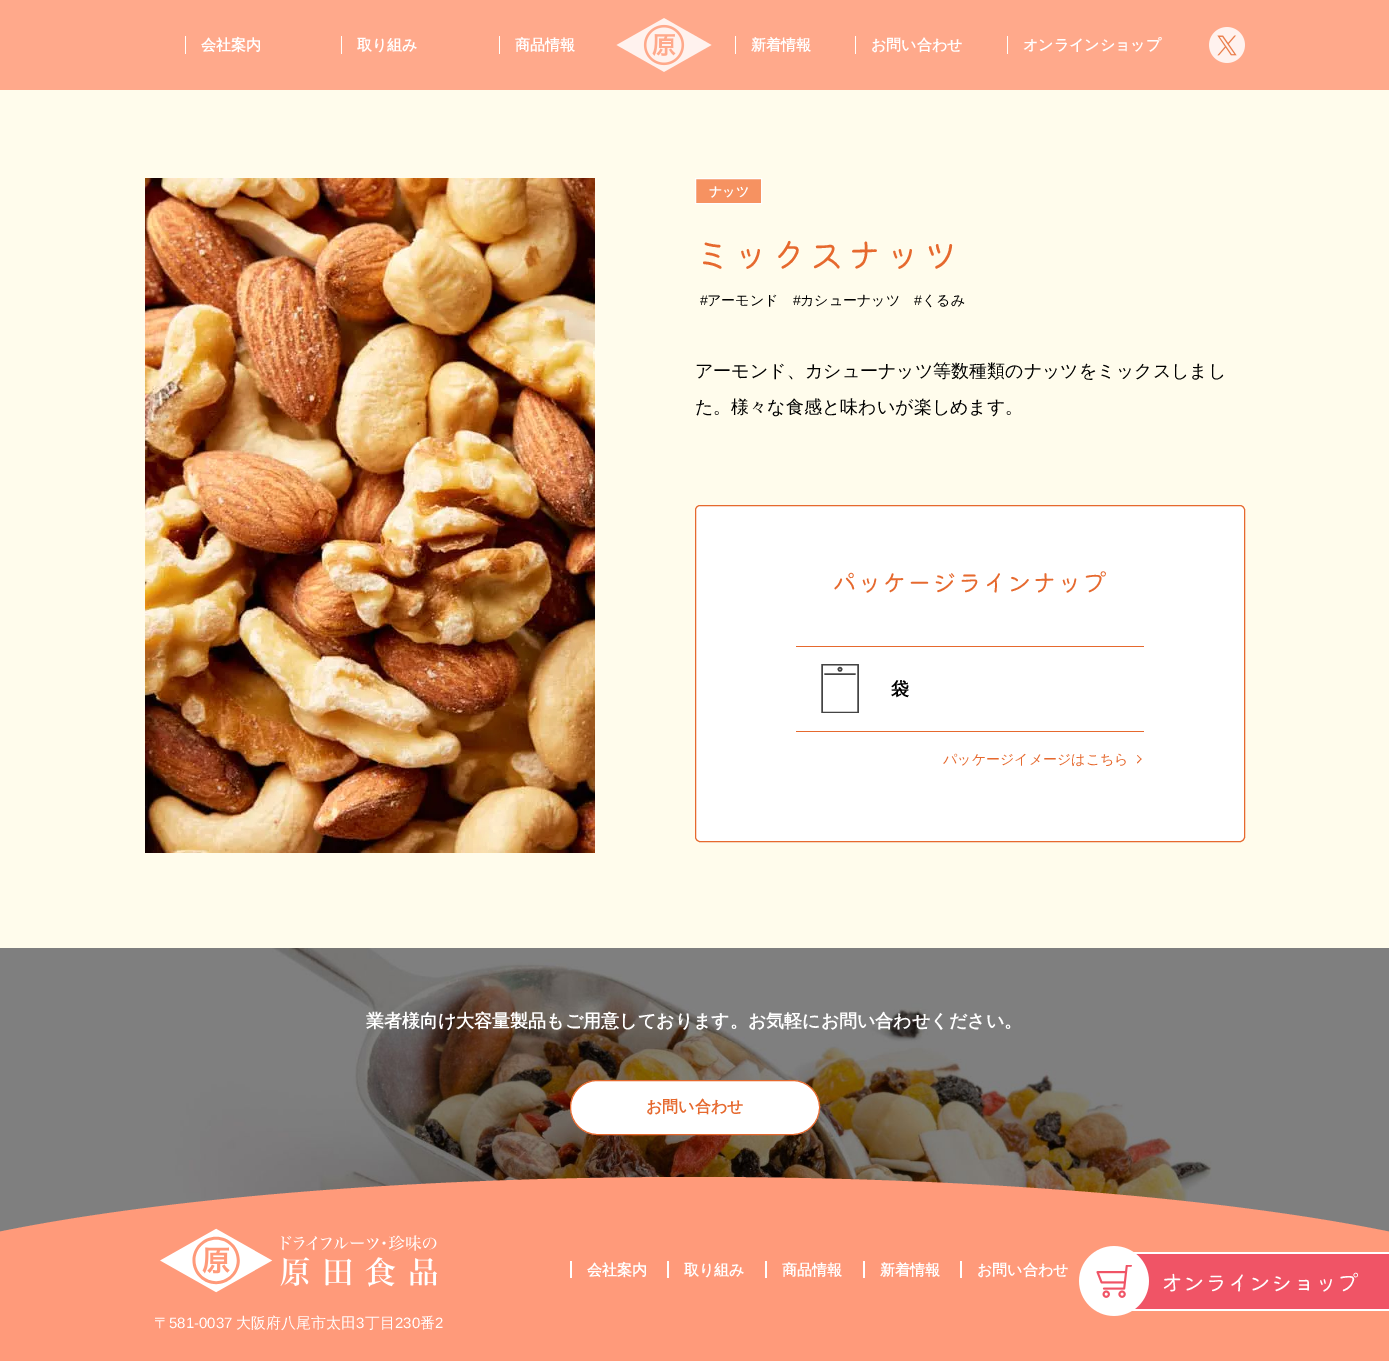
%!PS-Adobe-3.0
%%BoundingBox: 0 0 1389 1361
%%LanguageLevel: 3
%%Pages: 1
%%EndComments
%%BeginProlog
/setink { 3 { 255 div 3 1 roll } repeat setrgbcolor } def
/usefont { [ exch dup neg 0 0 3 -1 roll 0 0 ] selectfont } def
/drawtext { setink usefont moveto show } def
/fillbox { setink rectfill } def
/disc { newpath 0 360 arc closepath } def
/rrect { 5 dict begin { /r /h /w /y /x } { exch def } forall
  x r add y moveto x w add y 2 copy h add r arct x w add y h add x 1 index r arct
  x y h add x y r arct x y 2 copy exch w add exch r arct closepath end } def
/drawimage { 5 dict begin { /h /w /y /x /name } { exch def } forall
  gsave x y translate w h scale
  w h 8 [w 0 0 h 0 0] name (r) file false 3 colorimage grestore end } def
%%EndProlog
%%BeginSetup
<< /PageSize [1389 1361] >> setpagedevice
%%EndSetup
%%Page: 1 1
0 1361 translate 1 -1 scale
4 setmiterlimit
0 0 1389 1361 255 252 236 fillbox
0 0 1389 90 255 169 139 fillbox
185 36 1 18 255 255 252 fillbox
(会社案内) 201 50 /WenQuanYiZenHei-Bold 15 255 255 255 drawtext
341 36 1 18 255 255 252 fillbox
(取り組み) 357 50 /WenQuanYiZenHei-Bold 15 255 255 255 drawtext
499 36 1 18 255 255 252 fillbox
(商品情報) 515 50 /WenQuanYiZenHei-Bold 15 255 255 255 drawtext
(assets/img1.rgb) 616 18 96 54 drawimage
735 36 1 18 255 255 252 fillbox
(新着情報) 751 50 /WenQuanYiZenHei-Bold 15 255 255 255 drawtext
855 36 1 18 255 255 252 fillbox
(お問い合わせ) 871 50 /WenQuanYiZenHei-Bold 15 255 255 255 drawtext
1007 36 1 18 255 255 252 fillbox
(オンラインショップ) 1023 50 /WenQuanYiZenHei-Bold 15 255 255 255 drawtext
(assets/img2.rgb) 1209 27 36 36 drawimage
(assets/img3.rgb) 145 178 450 675 drawimage
246 146 97 setink
695.5 178.5 moveto 761.5 178.5 lineto 761.5 203.5 lineto 695.5 203.5 lineto closepath gsave fill grestore
255 255 255 setink
stroke
(ナッツ) 709 196 /WenQuanYiZenHei-Bold 13 255 255 255 drawtext
/KiwiMaru-Regular 35 usefont
230 105 46 setink
695 268 moveto 3 0 (ミックスナッツ) ashow
(#) 700 305 /LiberationSans-Regular 14 0 0 0 drawtext
(アーモンド) 707 305 /WenQuanYiZenHei-Medium 14 0 0 0 drawtext
(#) 793 305 /LiberationSans-Regular 14 0 0 0 drawtext
(カシューナッツ) 800 305 /WenQuanYiZenHei-Medium 14 0 0 0 drawtext
(#) 914 305 /LiberationSans-Regular 14 0 0 0 drawtext
(くるみ) 922 305 /WenQuanYiZenHei-Medium 14 0 0 0 drawtext
(アーモンド、カシューナッツ等数種類のナッツをミックスしまし) 695 377 /WenQuanYiZenHei-Medium 18 0 0 0 drawtext
(た。様々な食感と味わいが楽しめます。) 695 413 /WenQuanYiZenHei-Medium 18 0 0 0 drawtext
255 255 255 setink
695.5 505.5 549 336 4.5 rrect gsave fill grestore
230 105 46 setink
stroke
796 646 348 1 230 105 46 fillbox
(パッケージラインナップ) 832 592 /KiwiMaru-Regular 25 230 105 46 drawtext
796 731 348 1 230 105 46 fillbox
gsave
821 664 38 49 rectclip
68 68 68 setink
1.5 setlinewidth
1 setlinecap
1 setlinejoin
858 712.5 moveto 858 664.5 lineto 822 664.5 lineto 822 712.5 lineto closepath stroke
grestore
68 68 68 setink
1.5 setlinewidth
1 setlinecap
1 setlinejoin
855 674 moveto 825 674 lineto stroke
0 setlinecap
0 setlinejoin
840 669.3 1.6 disc stroke
(袋) 891 695 /WenQuanYiZenHei-Bold 18 0 0 0 drawtext
(パッケージイメージはこちら) 943 764 /WenQuanYiZenHei-Medium 14 230 105 46 drawtext
1137.5 755 moveto 1141.5 759 lineto 1141 759.5 lineto 1137 755.5 lineto closepath fill
1141 758.5 moveto 1141.5 759 lineto 1137.5 763.5 lineto 1137 762.5 lineto closepath fill
(assets/img4.rgb) 0 948 1389 284 drawimage
(業者様向け大容量製品もご用意しております。お気軽にお問い合わせください。) 366 1027 /WenQuanYiZenHei-Bold 18 255 255 255 drawtext
570.5 1080.5 249 54 27 rrect gsave fill grestore
230 105 46 setink
1 setlinewidth
stroke
(お問い合わせ) 646 1112 /WenQuanYiZenHei-Bold 16 230 105 46 drawtext
255 154 122 setink
694 1177 moveto 1189 1177 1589 1243 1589 1325 curveto 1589 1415 lineto -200 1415 lineto -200 1325 lineto -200 1243 200 1177 694 1177 curveto closepath fill
570 1261 2 17 255 255 255 fillbox
(会社案内) 587 1275 /WenQuanYiZenHei-Bold 15 255 255 255 drawtext
667 1261 2 17 255 255 255 fillbox
(取り組み) 684 1275 /WenQuanYiZenHei-Bold 15 255 255 255 drawtext
765 1261 2 17 255 255 255 fillbox
(商品情報) 782 1275 /WenQuanYiZenHei-Bold 15 255 255 255 drawtext
863 1261 2 17 255 255 255 fillbox
(新着情報) 880 1275 /WenQuanYiZenHei-Bold 15 255 255 255 drawtext
960 1261 2 17 255 255 255 fillbox
(お問い合わせ) 977 1275 /WenQuanYiZenHei-Bold 15 255 255 255 drawtext
(assets/img5.rgb) 160 1228 277 65 drawimage
(〒) 154 1328 /WenQuanYiZenHei-Medium 15 255 255 255 drawtext
(581-0037) 169 1328 /LiberationSans-Regular 15 255 255 255 drawtext
(大阪府八尾市太田) 236 1328 /WenQuanYiZenHei-Medium 15 255 255 255 drawtext
(3) 356 1328 /LiberationSans-Regular 15 255 255 255 drawtext
(丁目) 365 1328 /WenQuanYiZenHei-Medium 15 255 255 255 drawtext
(230) 395 1328 /LiberationSans-Regular 15 255 255 255 drawtext
(番) 420 1328 /WenQuanYiZenHei-Medium 15 255 255 255 drawtext
(2) 435 1328 /LiberationSans-Regular 15 255 255 255 drawtext
1135 1254 254 55 240 84 102 fillbox
1129 1252 260 2 255 255 255 fillbox
1129 1309 260 2 255 255 255 fillbox
(assets/img6.rgb) 1079 1246 70 70 drawimage
(オンラインショップ) 1161 1291 /KiwiMaru-Regular 22 255 255 255 drawtext
showpage
%%EOF
